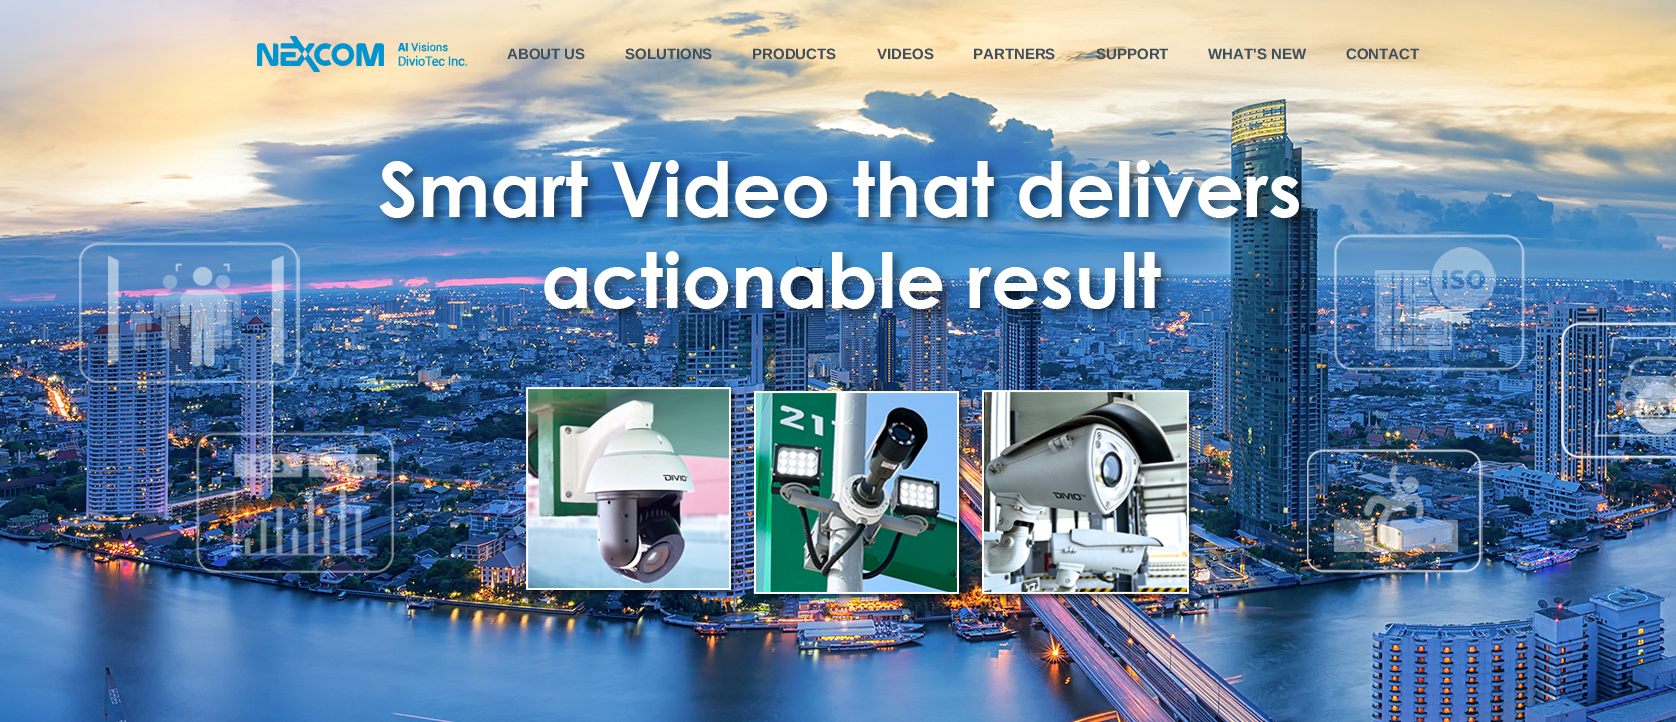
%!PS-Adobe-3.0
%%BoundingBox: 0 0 1676 722
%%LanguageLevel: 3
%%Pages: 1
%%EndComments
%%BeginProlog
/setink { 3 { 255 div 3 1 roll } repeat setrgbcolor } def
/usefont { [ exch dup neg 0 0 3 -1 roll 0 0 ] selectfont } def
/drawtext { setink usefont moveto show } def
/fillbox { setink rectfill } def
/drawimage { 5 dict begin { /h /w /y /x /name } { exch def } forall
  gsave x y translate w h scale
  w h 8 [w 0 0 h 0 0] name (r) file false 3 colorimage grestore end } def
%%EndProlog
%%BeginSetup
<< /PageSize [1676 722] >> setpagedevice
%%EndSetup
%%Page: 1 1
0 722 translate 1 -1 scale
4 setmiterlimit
0 0 1676 722 255 255 255 fillbox
(assets/img1.rgb) 0 0 1676 722 drawimage
(assets/img2.rgb) 257 36 210 36 drawimage
(ABOUT US) 507 59 /LiberationSans-Bold 15 63 78 91 drawtext
(SOLUTIONS) 625 59 /LiberationSans-Bold 15 63 78 91 drawtext
(PRODUCTS) 752 59 /LiberationSans-Bold 15 63 78 91 drawtext
(VIDEOS) 877 59 /LiberationSans-Bold 15 63 78 91 drawtext
(PARTNERS) 973 59 /LiberationSans-Bold 15 63 78 91 drawtext
(SUPPORT) 1096 59 /LiberationSans-Bold 15 63 78 91 drawtext
(WHAT'S NEW) 1208 59 /LiberationSans-Bold 15 63 78 91 drawtext
(CONTACT) 1346 59 /LiberationSans-Bold 15 63 78 91 drawtext
showpage
%%EOF
